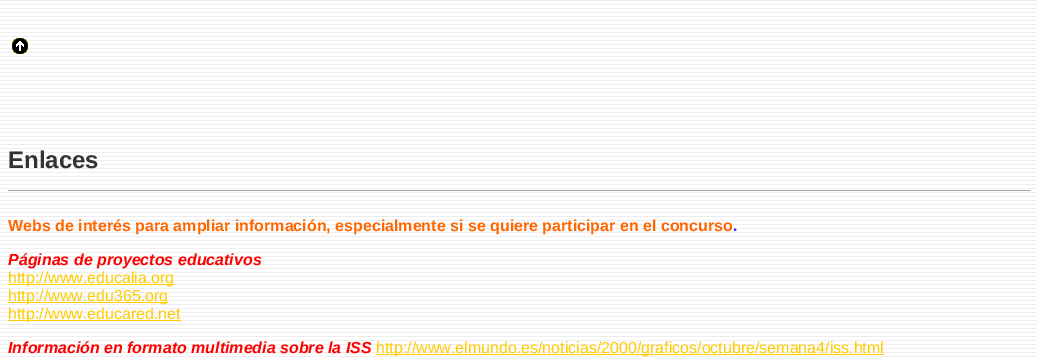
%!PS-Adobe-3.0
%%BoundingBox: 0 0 1037 359
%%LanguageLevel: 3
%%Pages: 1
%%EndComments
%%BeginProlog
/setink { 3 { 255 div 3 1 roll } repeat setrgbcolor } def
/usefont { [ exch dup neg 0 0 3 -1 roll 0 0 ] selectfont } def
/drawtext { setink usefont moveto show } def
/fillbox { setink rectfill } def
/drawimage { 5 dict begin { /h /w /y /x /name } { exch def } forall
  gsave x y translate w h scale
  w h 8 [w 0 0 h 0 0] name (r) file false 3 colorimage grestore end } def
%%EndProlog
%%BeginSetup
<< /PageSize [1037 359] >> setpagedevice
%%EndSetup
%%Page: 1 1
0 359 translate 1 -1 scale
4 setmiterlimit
0 0 1037 359 255 255 255 fillbox
(assets/img1.rgb) 0 0 1037 357 drawimage
(assets/img2.rgb) 12 38 16 16 drawimage
(Enlaces) 8 168 /LiberationSans-Bold 24 51 51 51 drawtext
8 190 1023 1 159 159 159 fillbox
1030 190 1 1 238 238 238 fillbox
(Webs de interés para ampliar información, especialmente si se quiere participar en el concurso) 8 231 /LiberationSans-Bold 16 255 102 0 drawtext
(.) 733 231 /LiberationSans-Bold 16 51 51 255 drawtext
(Páginas de proyectos educativos) 8 265 /LiberationSans-BoldItalic 16 255 0 0 drawtext
8 284 166 1 255 204 0 fillbox
(http://www.educalia.org) 8 283 /LiberationSans-Regular 16 255 204 0 drawtext
8 302 160 1 255 204 0 fillbox
(http://www.edu365.org) 8 301 /LiberationSans-Regular 16 255 204 0 drawtext
8 320 173 1 255 204 0 fillbox
(http://www.educared.net) 8 319 /LiberationSans-Regular 16 255 204 0 drawtext
(Información en formato multimedia sobre la ISS) 8 353 /LiberationSans-BoldItalic 16 255 0 0 drawtext
376 354 508 1 255 204 0 fillbox
(http://www.elmundo.es/noticias/2000/graficos/octubre/semana4/iss.html) 376 353 /LiberationSans-Regular 16 255 204 0 drawtext
showpage
%%EOF
